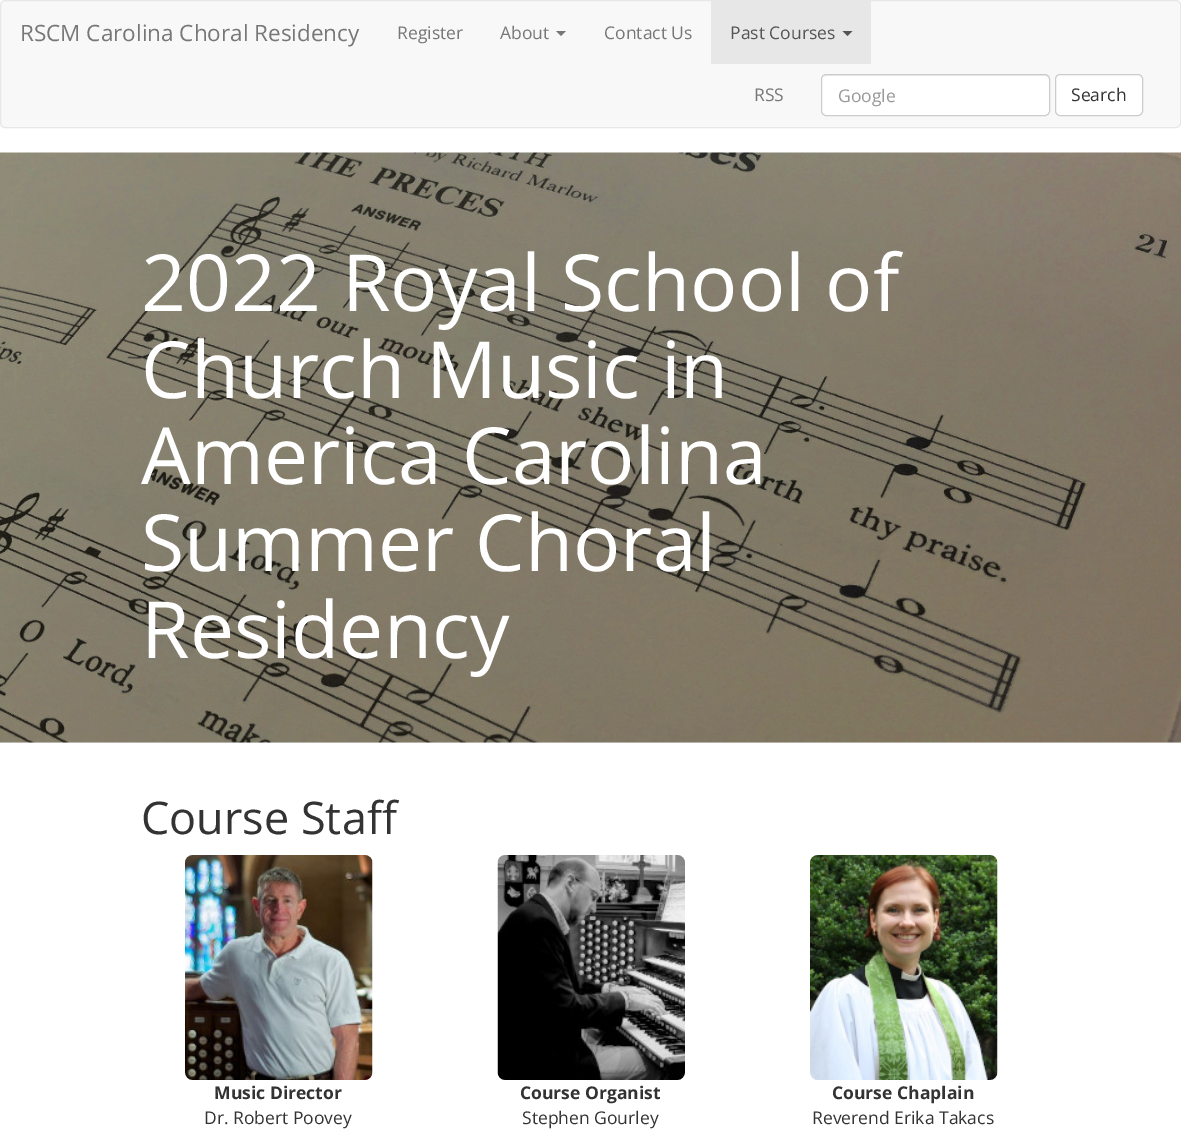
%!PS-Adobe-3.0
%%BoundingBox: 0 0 1181 1142
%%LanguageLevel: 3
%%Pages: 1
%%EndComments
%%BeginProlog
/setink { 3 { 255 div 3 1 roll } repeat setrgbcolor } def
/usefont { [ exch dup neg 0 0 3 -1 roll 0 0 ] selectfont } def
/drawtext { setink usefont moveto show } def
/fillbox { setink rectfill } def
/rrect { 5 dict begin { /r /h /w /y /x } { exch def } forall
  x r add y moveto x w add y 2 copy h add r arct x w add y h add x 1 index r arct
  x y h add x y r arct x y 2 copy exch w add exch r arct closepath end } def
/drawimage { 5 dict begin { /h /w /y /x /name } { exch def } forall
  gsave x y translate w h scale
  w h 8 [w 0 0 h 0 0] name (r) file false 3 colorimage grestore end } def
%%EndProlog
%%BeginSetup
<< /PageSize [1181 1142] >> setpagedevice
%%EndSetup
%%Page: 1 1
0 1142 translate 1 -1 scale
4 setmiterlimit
0 0 1181 1142 255 255 255 fillbox
248 248 248 setink
0.5 0.5 1180 127 4.5 rrect gsave fill grestore
231 231 231 setink
stroke
(RSCM Carolina Choral Residency) 20 41 /OpenSans-Regular 22.5 119 119 119 drawtext
(Register) 397 39 /OpenSans-Regular 17.5 119 119 119 drawtext
(About) 500 39 /OpenSans-Regular 17.5 119 119 119 drawtext
556 31 moveto 566 31 lineto 561 36 lineto closepath fill
(Contact Us) 604 39 /OpenSans-Regular 17.5 119 119 119 drawtext
711 1 160 63 231 231 231 fillbox
(Past Courses) 730 39 /OpenSans-Regular 17.5 85 85 85 drawtext
842.5 31 moveto 852.5 31 lineto 847.5 36 lineto closepath fill
(RSS) 754 101 /OpenSans-Regular 17.5 119 119 119 drawtext
255 255 255 setink
821 74 229 42 5 rrect fill
236 236 236 setink
826 76 moveto 1045 76 lineto 1047 76 1049 78 1049 80 curveto 1049 79 lineto 1049 77 1047 75 1045 75 curveto 827 75 lineto 826 75 824 76 824 77 curveto closepath fill
204 204 204 setink
821.5 74.5 228 41 4.5 rrect stroke
(Google) 838 102 /OpenSans-Regular 17.5 153 153 153 drawtext
255 255 255 setink
1055.5 74.5 87 41 4.5 rrect gsave fill grestore
204 204 204 setink
stroke
(Search) 1071 101 /OpenSans-Regular 17.5 51 51 51 drawtext
0 742 1181 1 238 238 238 fillbox
(assets/img1.rgb) 0 152 1181 591 drawimage
(2022 Royal School of) 141 311 /OpenSans-Regular 78.75 255 255 255 drawtext
(Church Music in) 141 398 /OpenSans-Regular 78.75 255 255 255 drawtext
(America Carolina) 141 484 /OpenSans-Regular 78.75 255 255 255 drawtext
(Summer Choral) 141 571 /OpenSans-Regular 78.75 255 255 255 drawtext
(Residency) 141 658 /OpenSans-Regular 78.75 255 255 255 drawtext
(Course Staff) 141 834 /OpenSans-Regular 45 51 51 51 drawtext
(assets/img2.rgb) 185 855 188 225 drawimage
(Music Director) 214 1099 /OpenSans-Bold 17.5 51 51 51 drawtext
(Dr. Robert Poovey) 204 1124 /OpenSans-Regular 17.5 51 51 51 drawtext
(assets/img3.rgb) 497 855 188 225 drawimage
(Course Organist) 520 1099 /OpenSans-Bold 17.5 51 51 51 drawtext
(Stephen Gourley) 522 1124 /OpenSans-Regular 17.5 51 51 51 drawtext
(assets/img4.rgb) 810 855 188 225 drawimage
(Course Chaplain) 832 1099 /OpenSans-Bold 17.5 51 51 51 drawtext
(Reverend Erika Takacs) 812 1124 /OpenSans-Regular 17.5 51 51 51 drawtext
showpage
%%EOF
